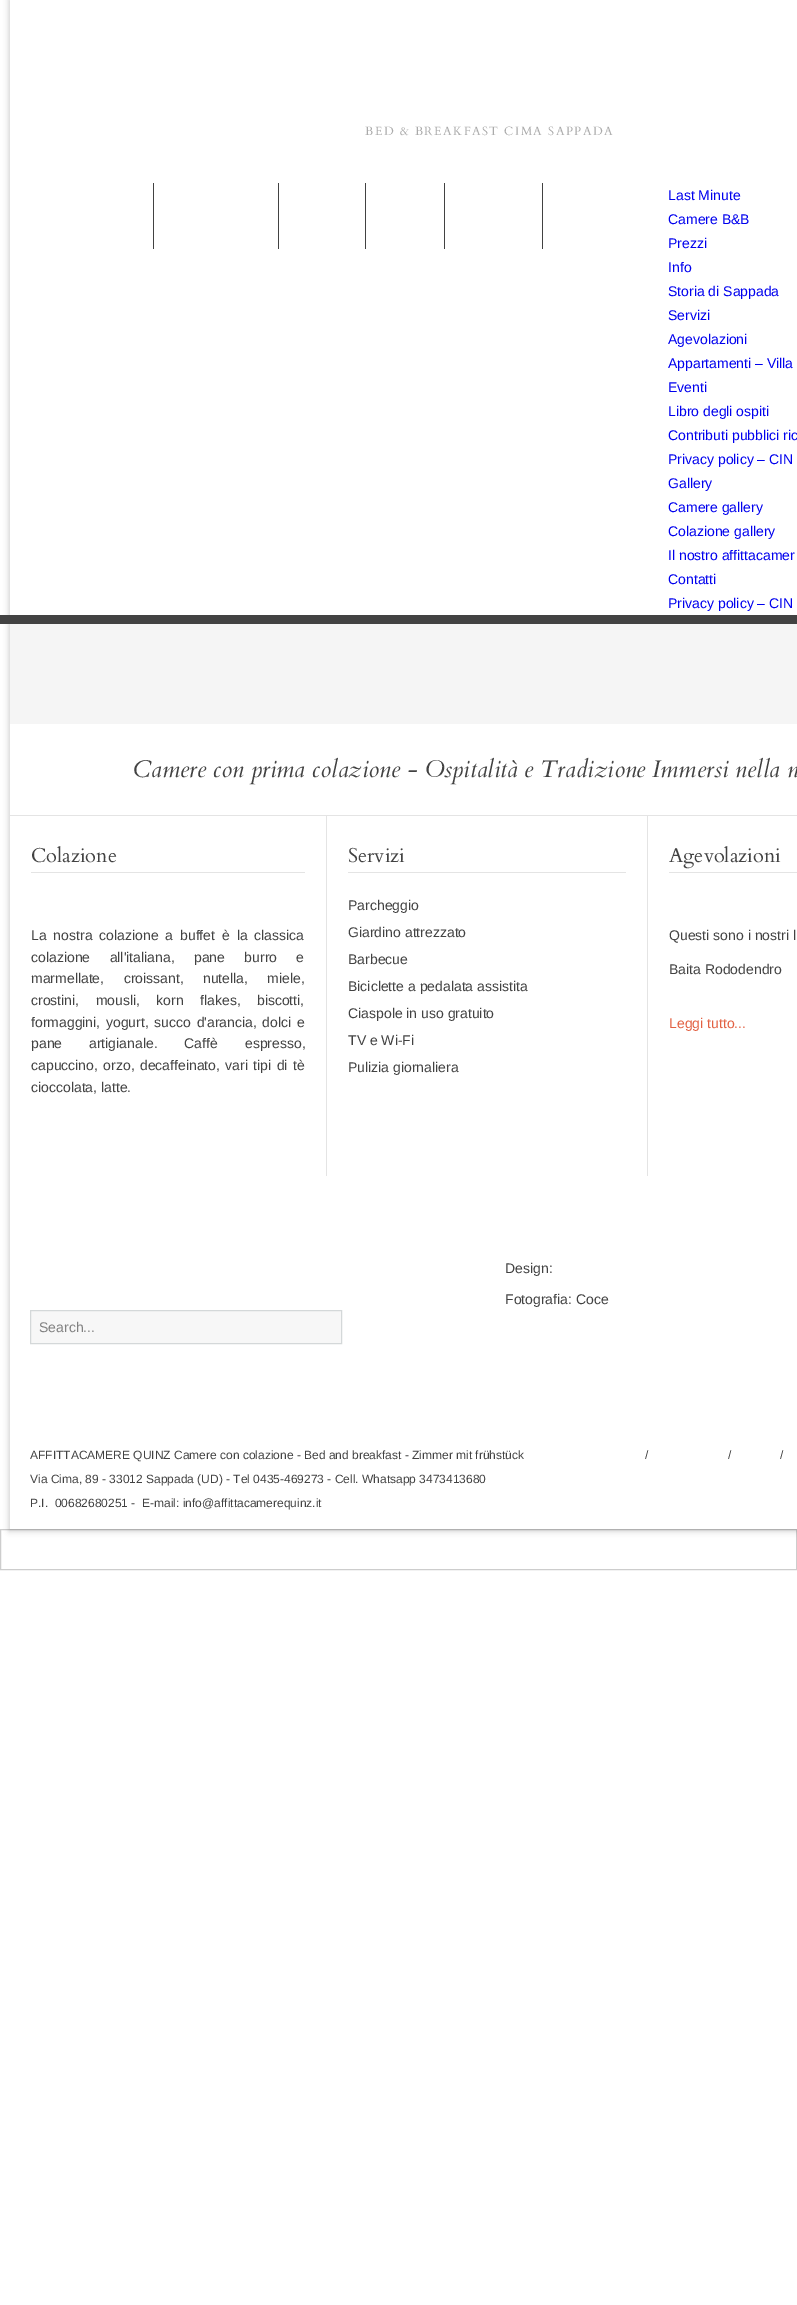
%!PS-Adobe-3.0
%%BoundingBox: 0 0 797 2305
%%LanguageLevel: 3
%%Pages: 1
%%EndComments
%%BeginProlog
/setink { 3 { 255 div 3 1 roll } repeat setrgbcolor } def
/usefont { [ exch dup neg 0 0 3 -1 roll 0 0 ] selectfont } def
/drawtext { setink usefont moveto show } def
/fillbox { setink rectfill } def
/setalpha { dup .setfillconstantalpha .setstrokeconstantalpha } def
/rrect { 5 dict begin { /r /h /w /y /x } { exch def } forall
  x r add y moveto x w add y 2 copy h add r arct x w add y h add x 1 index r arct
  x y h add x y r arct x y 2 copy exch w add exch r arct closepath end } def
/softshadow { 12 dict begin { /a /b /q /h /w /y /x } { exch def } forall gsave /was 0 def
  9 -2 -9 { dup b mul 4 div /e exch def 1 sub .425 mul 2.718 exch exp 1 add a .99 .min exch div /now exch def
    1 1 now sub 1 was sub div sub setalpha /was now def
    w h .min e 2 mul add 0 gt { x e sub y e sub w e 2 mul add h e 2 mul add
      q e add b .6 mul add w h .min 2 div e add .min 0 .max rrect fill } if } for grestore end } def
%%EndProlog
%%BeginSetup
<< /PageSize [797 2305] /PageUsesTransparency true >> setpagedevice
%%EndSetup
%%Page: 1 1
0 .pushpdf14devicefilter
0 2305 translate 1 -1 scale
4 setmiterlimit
0 0 797 2305 255 255 255 fillbox
205 205 205 setink
0.5 1529.5 796 40 rectstroke
gsave
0 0 moveto 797 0 lineto 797 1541 lineto 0 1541 lineto closepath 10 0 moveto 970 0 lineto 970 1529 lineto 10 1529 lineto closepath eoclip newpath
0 0 0 setink
9 0 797 1531 0 3 0.2 softshadow
grestore
/Cardo-Regular 12 usefont
170 170 170 setink
365 135 moveto 1.5 0 (BED & BREAKFAST CIMA SAPPADA) ashow
0 615 797 9 66 66 66 fillbox
153 183 1 66 66 66 66 fillbox
278 183 1 66 66 66 66 fillbox
365 183 1 66 66 66 66 fillbox
444 183 1 66 66 66 66 fillbox
542 183 1 66 66 66 66 fillbox
(Last Minute) 668 200 /LiberationSans-Regular 14 0 0 238 drawtext
(Camere B&B) 668 224 /LiberationSans-Regular 14 0 0 238 drawtext
(Prezzi) 668 248 /LiberationSans-Regular 14 0 0 238 drawtext
(Info) 668 272 /LiberationSans-Regular 14 0 0 238 drawtext
(Storia di Sappada) 668 296 /LiberationSans-Regular 14 0 0 238 drawtext
(Servizi) 668 320 /LiberationSans-Regular 14 0 0 238 drawtext
(Agevolazioni) 668 344 /LiberationSans-Regular 14 0 0 238 drawtext
(Appartamenti – Villa) 668 368 /LiberationSans-Regular 14 0 0 238 drawtext
(Eventi) 668 392 /LiberationSans-Regular 14 0 0 238 drawtext
(Libro degli ospiti) 668 416 /LiberationSans-Regular 14 0 0 238 drawtext
(Contributi pubblici ric) 668 440 /LiberationSans-Regular 14 0 0 238 drawtext
(Privacy policy – CIN) 668 464 /LiberationSans-Regular 14 0 0 238 drawtext
(Gallery) 668 488 /LiberationSans-Regular 14 0 0 238 drawtext
(Camere gallery) 668 512 /LiberationSans-Regular 14 0 0 238 drawtext
(Colazione gallery) 668 536 /LiberationSans-Regular 14 0 0 238 drawtext
(Il nostro affittacamer) 668 560 /LiberationSans-Regular 14 0 0 238 drawtext
(Contatti) 668 584 /LiberationSans-Regular 14 0 0 238 drawtext
(Privacy policy – CIN) 668 608 /LiberationSans-Regular 14 0 0 238 drawtext
10 624 787 100 245 245 245 fillbox
(Camere con prima colazione - Ospitalità e Tradizione Immersi nella n) 133 777 /Cardo-Italic 24 66 66 66 drawtext
10 815 787 1 228 228 228 fillbox
31 872 274 1 228 228 228 fillbox
(Colazione) 31 862 /Cardo-Regular 20 66 66 66 drawtext
/LiberationSans-Regular 14 usefont
31 940 moveto 3 0 32 (La nostra colazione a buffet è la classica) widthshow
31 962 moveto 15.5 0 32 (colazione all'italiana, pane burro e) widthshow
31 983 moveto 15.5 0 32 (marmellate, croissant, nutella, miele,) widthshow
31 1005 moveto 12.5 0 32 (crostini, mousli, korn flakes, biscotti,) widthshow
31 1027 moveto 1.75 0 32 (formaggini, yogurt, succo d'arancia, dolci e) widthshow
31 1048 moveto 23 0 32 (pane artigianale. Caffè espresso,) widthshow
31 1070 moveto 1.5 0 32 (capuccino, orzo, decaffeinato, vari tipi di tè) widthshow
(cioccolata, latte.) 31 1092 /LiberationSans-Regular 14 66 66 66 drawtext
647 816 1 360 228 228 228 fillbox
326 816 1 360 228 228 228 fillbox
348 872 278 1 228 228 228 fillbox
(Servizi) 348 862 /Cardo-Regular 20 66 66 66 drawtext
(Parcheggio) 348 910 /LiberationSans-Regular 14 66 66 66 drawtext
(Giardino attrezzato) 348 937 /LiberationSans-Regular 14 66 66 66 drawtext
(Barbecue) 348 964 /LiberationSans-Regular 14 66 66 66 drawtext
(Biciclette a pedalata assistita) 348 991 /LiberationSans-Regular 14 66 66 66 drawtext
(Ciaspole in uso gratuito) 348 1018 /LiberationSans-Regular 14 66 66 66 drawtext
(TV e Wi-Fi) 348 1045 /LiberationSans-Regular 14 66 66 66 drawtext
(Pulizia giornaliera) 348 1072 /LiberationSans-Regular 14 66 66 66 drawtext
669 872 128 1 228 228 228 fillbox
(Agevolazioni) 669 862 /Cardo-Regular 20 66 66 66 drawtext
(Questi sono i nostri l) 669 940 /LiberationSans-Regular 14 66 66 66 drawtext
(Baita Rododendro) 669 974 /LiberationSans-Regular 14 66 66 66 drawtext
(Leggi tutto...) 669 1028 /LiberationSans-Regular 14 226 97 67 drawtext
(Design:) 505 1273 /LiberationSans-Regular 14 66 66 66 drawtext
(Fotografia: Coce) 505 1304 /LiberationSans-Regular 14 66 66 66 drawtext
247 247 247 setink
30.5 1310.5 moveto 341.5 1310.5 lineto 341.5 1343.5 lineto 30.5 1343.5 lineto closepath gsave fill grestore
212 216 217 setink
stroke
(Search...) 39 1332 /LiberationSans-Regular 14 129 129 129 drawtext
(AFFITTACAMERE QUINZ Camere con colazione - Bed and breakfast - Zimmer mit frühstück) 30 1459 /LiberationSans-Regular 12 66 66 66 drawtext
(Via Cima, 89 - 33012 Sappada \(UD\) - Tel 0435-469273 - Cell. Whatsapp 3473413680) 30 1483 /LiberationSans-Regular 12 66 66 66 drawtext
(P.I.  00682680251 -  E-mail: info@affittacamerequinz.it) 30 1507 /LiberationSans-Regular 12 66 66 66 drawtext
(/) 645 1459 /LiberationSans-Regular 12 66 66 66 drawtext
(/) 728 1459 /LiberationSans-Regular 12 66 66 66 drawtext
(/) 780 1459 /LiberationSans-Regular 12 66 66 66 drawtext
.poppdf14devicefilter showpage
%%EOF
